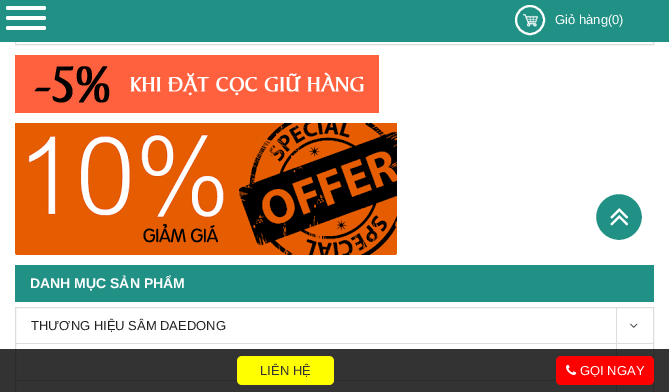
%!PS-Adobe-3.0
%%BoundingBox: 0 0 669 392
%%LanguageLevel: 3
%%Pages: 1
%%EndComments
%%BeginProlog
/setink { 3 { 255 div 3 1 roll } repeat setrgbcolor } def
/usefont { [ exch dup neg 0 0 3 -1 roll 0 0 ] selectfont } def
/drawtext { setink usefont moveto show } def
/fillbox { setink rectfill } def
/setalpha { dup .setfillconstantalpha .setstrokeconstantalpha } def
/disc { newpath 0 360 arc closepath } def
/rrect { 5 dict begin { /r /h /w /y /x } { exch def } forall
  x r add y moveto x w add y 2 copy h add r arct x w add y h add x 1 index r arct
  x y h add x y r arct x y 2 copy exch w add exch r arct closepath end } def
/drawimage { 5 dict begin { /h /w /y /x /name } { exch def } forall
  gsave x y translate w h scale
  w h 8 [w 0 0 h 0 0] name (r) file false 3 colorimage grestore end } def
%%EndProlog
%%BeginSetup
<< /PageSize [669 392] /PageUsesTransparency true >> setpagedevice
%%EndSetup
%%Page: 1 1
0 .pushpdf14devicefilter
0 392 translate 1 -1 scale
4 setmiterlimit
0 0 669 392 255 255 255 fillbox
221 221 221 setink
15.5 -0.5 638 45 rectstroke
0 0 669 42 33 145 134 fillbox
255 255 255 setink
6 26 40 4 2 rrect fill
6 6 40 4 2 rrect fill
6 16 40 4 2 rrect fill
(assets/img1.rgb) 523 14 15 13 drawimage
2 setlinewidth
530 20 14 disc stroke
(Giỏ hàng\(0\)) 555 24 /LiberationSans-Regular 13 255 255 255 drawtext
33 145 134 setink
619 217 24 disc gsave fill grestore
255 255 255 setink
stroke
(assets/img2.rgb) 610 208 19 18 drawimage
(assets/img3.rgb) 15 55 364 58 drawimage
(assets/img4.rgb) 15 123 382 132 drawimage
15 265 639 37 33 145 134 fillbox
(DANH MỤC SẢN PHẨM) 30 288 /LiberationSans-Bold 14 255 255 255 drawtext
221 221 221 setink
1 setlinewidth
15.5 307.5 638 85 rectstroke
16 343 637 1 221 221 221 fillbox
(THƯƠNG HIỆU SÂM DAEDONG) 31 330 /LiberationSans-Regular 13 34 34 34 drawtext
616 308 1 48 221 221 221 fillbox
(assets/img5.rgb) 630 323 8 5 drawimage
16 380 541 1 221 221 221 fillbox
616 381 1 11 221 221 221 fillbox
0.8 setalpha
0 349 669 43 0 0 0 fillbox
1 setalpha
255 255 0 setink
237 356 97 29 5 rrect fill
(LIÊN HỆ) 260 375 /LiberationSans-Regular 13 51 51 51 drawtext
255 0 0 setink
556 356 98 29 5 rrect fill
(assets/img6.rgb) 566 364 11 11 drawimage
(GỌI NGAY) 580 375 /LiberationSans-Regular 13 255 255 255 drawtext
.poppdf14devicefilter showpage
%%EOF
